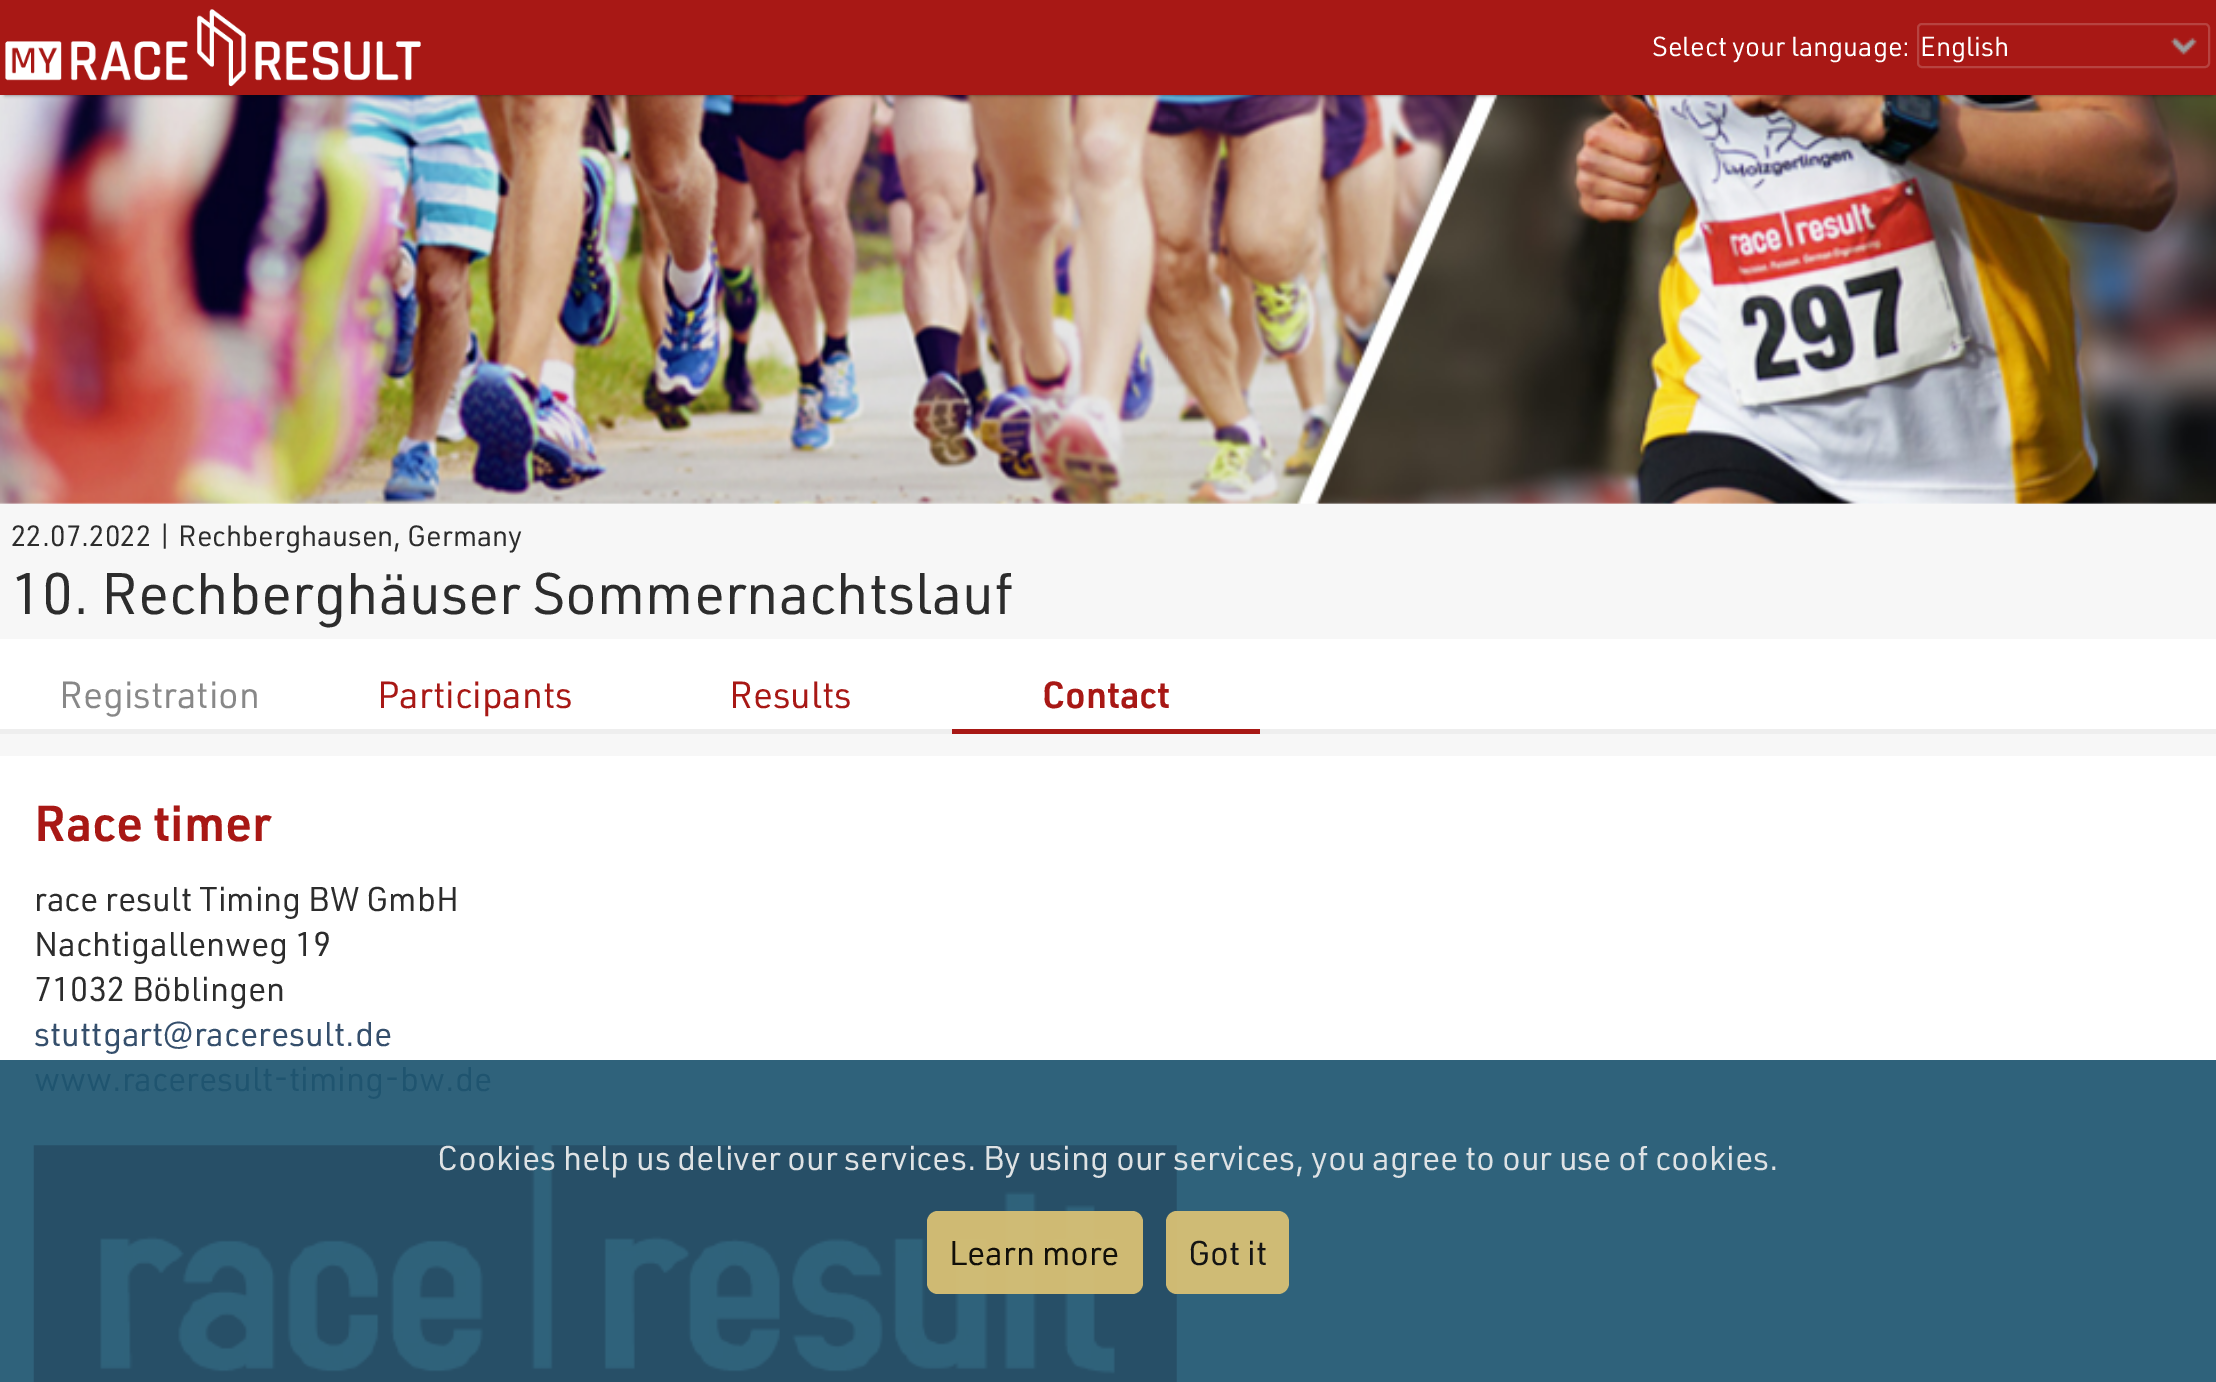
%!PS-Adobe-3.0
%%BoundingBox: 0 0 2216 1382
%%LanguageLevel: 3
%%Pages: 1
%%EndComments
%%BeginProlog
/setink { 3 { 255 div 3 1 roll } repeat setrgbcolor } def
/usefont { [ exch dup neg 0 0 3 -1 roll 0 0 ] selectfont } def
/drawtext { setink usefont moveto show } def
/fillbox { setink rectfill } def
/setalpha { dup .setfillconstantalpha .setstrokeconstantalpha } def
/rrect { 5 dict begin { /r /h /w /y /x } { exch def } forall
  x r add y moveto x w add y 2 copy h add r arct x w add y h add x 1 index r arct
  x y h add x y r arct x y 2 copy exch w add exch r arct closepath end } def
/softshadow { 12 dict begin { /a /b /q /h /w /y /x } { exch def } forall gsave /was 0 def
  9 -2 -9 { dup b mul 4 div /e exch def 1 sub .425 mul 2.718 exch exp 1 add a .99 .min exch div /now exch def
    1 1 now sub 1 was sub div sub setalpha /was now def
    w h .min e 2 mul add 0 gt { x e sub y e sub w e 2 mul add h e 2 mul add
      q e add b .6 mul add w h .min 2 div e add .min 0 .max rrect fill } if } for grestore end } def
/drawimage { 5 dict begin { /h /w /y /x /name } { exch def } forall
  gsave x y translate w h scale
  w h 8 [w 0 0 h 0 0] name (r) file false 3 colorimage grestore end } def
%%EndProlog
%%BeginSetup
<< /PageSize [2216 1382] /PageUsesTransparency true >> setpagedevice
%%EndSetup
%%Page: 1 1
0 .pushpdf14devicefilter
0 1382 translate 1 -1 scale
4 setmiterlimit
0 0 2216 1382 247 247 247 fillbox
(assets/img3.rgb) 0 95 2216 409 drawimage
0 0 0 setink
5 9 2207 86 0 2 0.52 softshadow
0 0 2216 95 168 24 21 fillbox
(assets/img1.rgb) 5 9 416 78 drawimage
(Select your language:) 1652 56 /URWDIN-Regular 27 255 255 255 drawtext
(assets/img2.rgb) 2170 37 27 18 drawimage
183 67 64 setink
2 setlinewidth
1918 24 291 43 4 rrect stroke
(English) 1920 56 /URWDIN-Regular 27 255 255 255 drawtext
(22.07.2022 | Rechberghausen, Germany) 11 546 /URWDIN-Regular 28.7 44 44 44 drawtext
(10. Rechberghäuser Sommernachtslauf) 11 614 /URWDIN-Regular 57.4 44 44 44 drawtext
0 639 2216 90 255 255 255 fillbox
0 729 2216 5 238 238 238 fillbox
(Registration) 59 708 /URWDIN-Regular 37 136 136 136 drawtext
(Participants) 377 708 /URWDIN-Regular 37 168 24 21 drawtext
(Results) 729 708 /URWDIN-Regular 37 168 24 21 drawtext
952 729 308 5 168 24 21 fillbox
(Contact) 1042 708 /URWDIN-SemiBold 37 168 24 21 drawtext
0 756 2216 304 255 255 255 fillbox
0 1060 2216 322 47 98 123 fillbox
(Race timer) 34 841 /URWDIN-SemiBold 49.5 168 24 21 drawtext
(race result Timing BW GmbH) 34 911 /URWDIN-Regular 33.75 44 44 44 drawtext
(Nachtigallenweg 19) 34 956 /URWDIN-Regular 33.75 44 44 44 drawtext
(71032 Böblingen) 34 1001 /URWDIN-Regular 33.75 44 44 44 drawtext
(stuttgart@raceresult.de) 34 1046 /URWDIN-Regular 33.75 53 79 108 drawtext
(www.raceresult-timing-bw.de) 34 1091 /URWDIN-Regular 33.75 31 84 111 drawtext
(assets/img4.rgb) 33 1145 1144 237 drawimage
(Cookies help us deliver our services. By using our services, you agree to our use of cookies.) 437 1170 /URWDIN-Regular 33.75 222 226 228 drawtext
0.92 setalpha
221 195 116 setink
927 1211 216 83 11 rrect fill
1 setalpha
(Learn more) 949 1265 /URWDIN-Regular 33.75 17 15 9 drawtext
0.92 setalpha
221 195 116 setink
1166 1211 123 83 11 rrect fill
1 setalpha
(Got it) 1188 1265 /URWDIN-Regular 33.75 20 20 20 drawtext
.poppdf14devicefilter showpage
%%EOF
